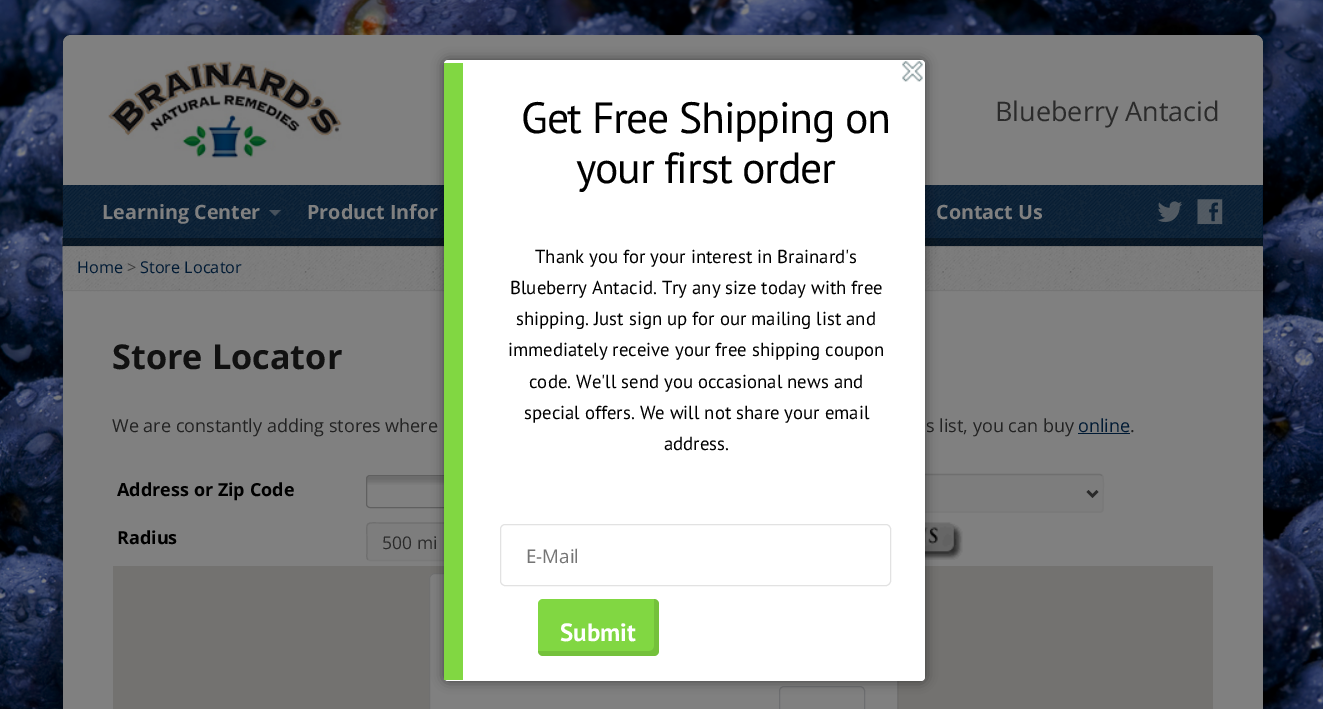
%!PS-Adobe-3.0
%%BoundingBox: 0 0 1323 709
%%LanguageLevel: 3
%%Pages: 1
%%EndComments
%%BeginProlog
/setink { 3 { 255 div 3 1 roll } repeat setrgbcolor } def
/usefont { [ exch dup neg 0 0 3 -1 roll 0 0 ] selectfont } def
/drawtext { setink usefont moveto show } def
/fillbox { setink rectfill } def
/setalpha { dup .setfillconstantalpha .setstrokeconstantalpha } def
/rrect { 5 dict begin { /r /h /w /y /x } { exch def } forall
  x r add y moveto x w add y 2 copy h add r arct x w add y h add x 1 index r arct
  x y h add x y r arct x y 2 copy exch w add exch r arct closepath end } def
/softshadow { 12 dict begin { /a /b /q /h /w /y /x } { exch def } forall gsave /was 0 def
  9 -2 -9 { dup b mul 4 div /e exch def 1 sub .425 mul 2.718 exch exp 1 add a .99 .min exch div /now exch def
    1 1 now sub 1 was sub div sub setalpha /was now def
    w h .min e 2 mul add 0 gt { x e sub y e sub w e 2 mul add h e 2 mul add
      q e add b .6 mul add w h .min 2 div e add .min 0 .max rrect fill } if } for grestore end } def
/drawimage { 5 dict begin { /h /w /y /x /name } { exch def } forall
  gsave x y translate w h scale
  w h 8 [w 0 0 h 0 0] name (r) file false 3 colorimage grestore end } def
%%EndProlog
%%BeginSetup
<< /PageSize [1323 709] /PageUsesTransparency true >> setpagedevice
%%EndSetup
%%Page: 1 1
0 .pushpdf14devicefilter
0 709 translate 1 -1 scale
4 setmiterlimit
0 0 1323 709 255 255 255 fillbox
(assets/img1.rgb) 0 0 1323 709 drawimage
0 0 0 setink
63 35 1200 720 8 12.5 0.12 softshadow
128 128 128 setink
63 35 1200 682 8 rrect fill
(assets/img2.rgb) 108 61 234 97 drawimage
(Blueberry Antacid) 995 121 /OpenSans-Regular 27 43 43 43 drawtext
63 185 1200 61 0 26 52 fillbox
(assets/img3.rgb) 62 185 1201 62 drawimage
(Learning Center) 102 219 /OpenSans-Bold 19.75 128 128 128 drawtext
0.5 setalpha
269 210 moveto 281 210 lineto 275 216 lineto closepath fill
1 setalpha
(Product Infor) 307 219 /OpenSans-Bold 19.75 128 128 128 drawtext
(Contact Us) 936 219 /OpenSans-Bold 19.75 128 128 128 drawtext
(assets/img4.rgb) 1157 201 25 21 drawimage
(assets/img5.rgb) 1197 199 26 26 drawimage
0.35 setalpha
62 238 1201 9 0 0 0 fillbox
1 setalpha
(assets/img6.rgb) 62 246 1201 46 drawimage
63 290 1200 1 117 117 117 fillbox
(Home) 77 273 /OpenSans-Regular 16.25 0 26 52 drawtext
(>) 127 273 /OpenSans-Regular 16.25 60 60 60 drawtext
(Store Locator) 140 273 /OpenSans-Regular 16.25 0 26 52 drawtext
(Store Locator) 112 369 /OpenSans-Bold 34.25 17 17 17 drawtext
(We are constantly adding stores where) 112 432 /OpenSans-Regular 18 34 34 34 drawtext
(s list, you can buy) 926 432 /OpenSans-Regular 18 34 34 34 drawtext
(online) 1078 432 /OpenSans-Regular 18 0 26 52 drawtext
1078 433 52 1 0 26 52 fillbox
(.) 1130 432 /OpenSans-Regular 18 34 34 34 drawtext
(Address or Zip Code) 117 496 /OpenSans-Bold 18 0 0 0 drawtext
(assets/img7.rgb) 366 476 78 9 drawimage
96 96 96 setink
366.5 475.5 361 32 3.5 rrect stroke
125 125 125 setink
734 474 370 39 4 rrect fill
121 121 121 setink
1.2 setlinewidth
1102 475.5 moveto 1104.5 477.5 1103 494.5 1103 498.5 curveto 1103 503.5 lineto 1103 506 1104 512 1100 512 curveto 737.5 512 lineto 735.5 511 lineto stroke
111 111 111 setink
735.5 511 moveto 733 509 734.5 491.5 734.5 488 curveto 734.5 482.5 lineto 734.5 480.5 733.5 474.5 737.5 474.5 curveto 1100 474.5 lineto 1102 475.5 lineto stroke
41 41 41 setink
2.5 setlinewidth
1087.5 491 moveto 1092.5 496 lineto 1097.5 491 lineto stroke
(Radius) 117 544 /OpenSans-Bold 18 0 0 0 drawtext
125 125 125 setink
366 523 102 38 4 rrect fill
121 121 121 setink
1.2 setlinewidth
466 524 moveto 467.5 526 467 530 467 531.5 curveto 467 542 lineto 467 564 471 560.5 448 560.5 curveto 370 560.5 lineto 368 559.5 lineto stroke
111 111 111 setink
368 559.5 moveto 366 558 367 554 367 552.5 curveto 367 542 lineto 367 519.5 363 523 385.5 523 curveto 464 523 lineto 466 524 lineto stroke
(500 mi) 382 549 /OpenSans-Regular 17.5 43 43 43 drawtext
(assets/img8.rgb) 925 522 38 38 drawimage
113 566 1100 143 115 114 112 fillbox
128 128 128 setink
429 573 469 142 6 rrect fill
0.12 setalpha
0 0 0 setink
1 setlinewidth
429.5 573.5 468 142 5.5 rrect stroke
1 setalpha
109 110 112 setink
779.5 686.5 85 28 4.5 rrect stroke
0 0 0 setink
444 60 481 621 4 6 0.5 softshadow
255 255 255 setink
444 60 481 621 4 rrect fill
(assets/img9.rgb) 902 61 21 21 drawimage
444 63 19 617 129 215 66 fillbox
/PTSans-Regular 43.75 usefont
0 0 0 setink
521 133 moveto -1.25 0 (Get Free Shipping on) ashow
576 183 moveto -1.25 0 (your first order) ashow
(Thank you for your interest in Brainard's) 535 263 /PTSans-Regular 18.75 0 0 0 drawtext
(Blueberry Antacid. Try any size today with free) 510 294 /PTSans-Regular 18.75 0 0 0 drawtext
(shipping. Just sign up for our mailing list and) 516 325 /PTSans-Regular 18.75 0 0 0 drawtext
(immediately receive your free shipping coupon) 508 356 /PTSans-Regular 18.75 0 0 0 drawtext
(code. We'll send you occasional news and) 529 388 /PTSans-Regular 18.75 0 0 0 drawtext
(special offers. We will not share your email) 524 419 /PTSans-Regular 18.75 0 0 0 drawtext
(address.) 664 450 /PTSans-Regular 18.75 0 0 0 drawtext
226 226 226 setink
500.5 524.5 390 61 4.5 rrect stroke
(E-Mail) 526 563 /OpenSans-Regular 18.75 117 117 117 drawtext
129 215 66 setink
538 599 121 57 5 rrect fill
0.1 setalpha
0 0 0 setink
538 651 moveto 538 654 540 656 543 656 curveto 654 656 lineto 657 656 659 654 659 651 curveto 659 604 lineto 659 601 657 599 654 599 curveto 654 646 lineto 654 649 652 651 649 651 curveto closepath fill
1 setalpha
(Submit) 560 641 /PTSans-Bold 25 255 255 255 drawtext
.poppdf14devicefilter showpage
%%EOF
